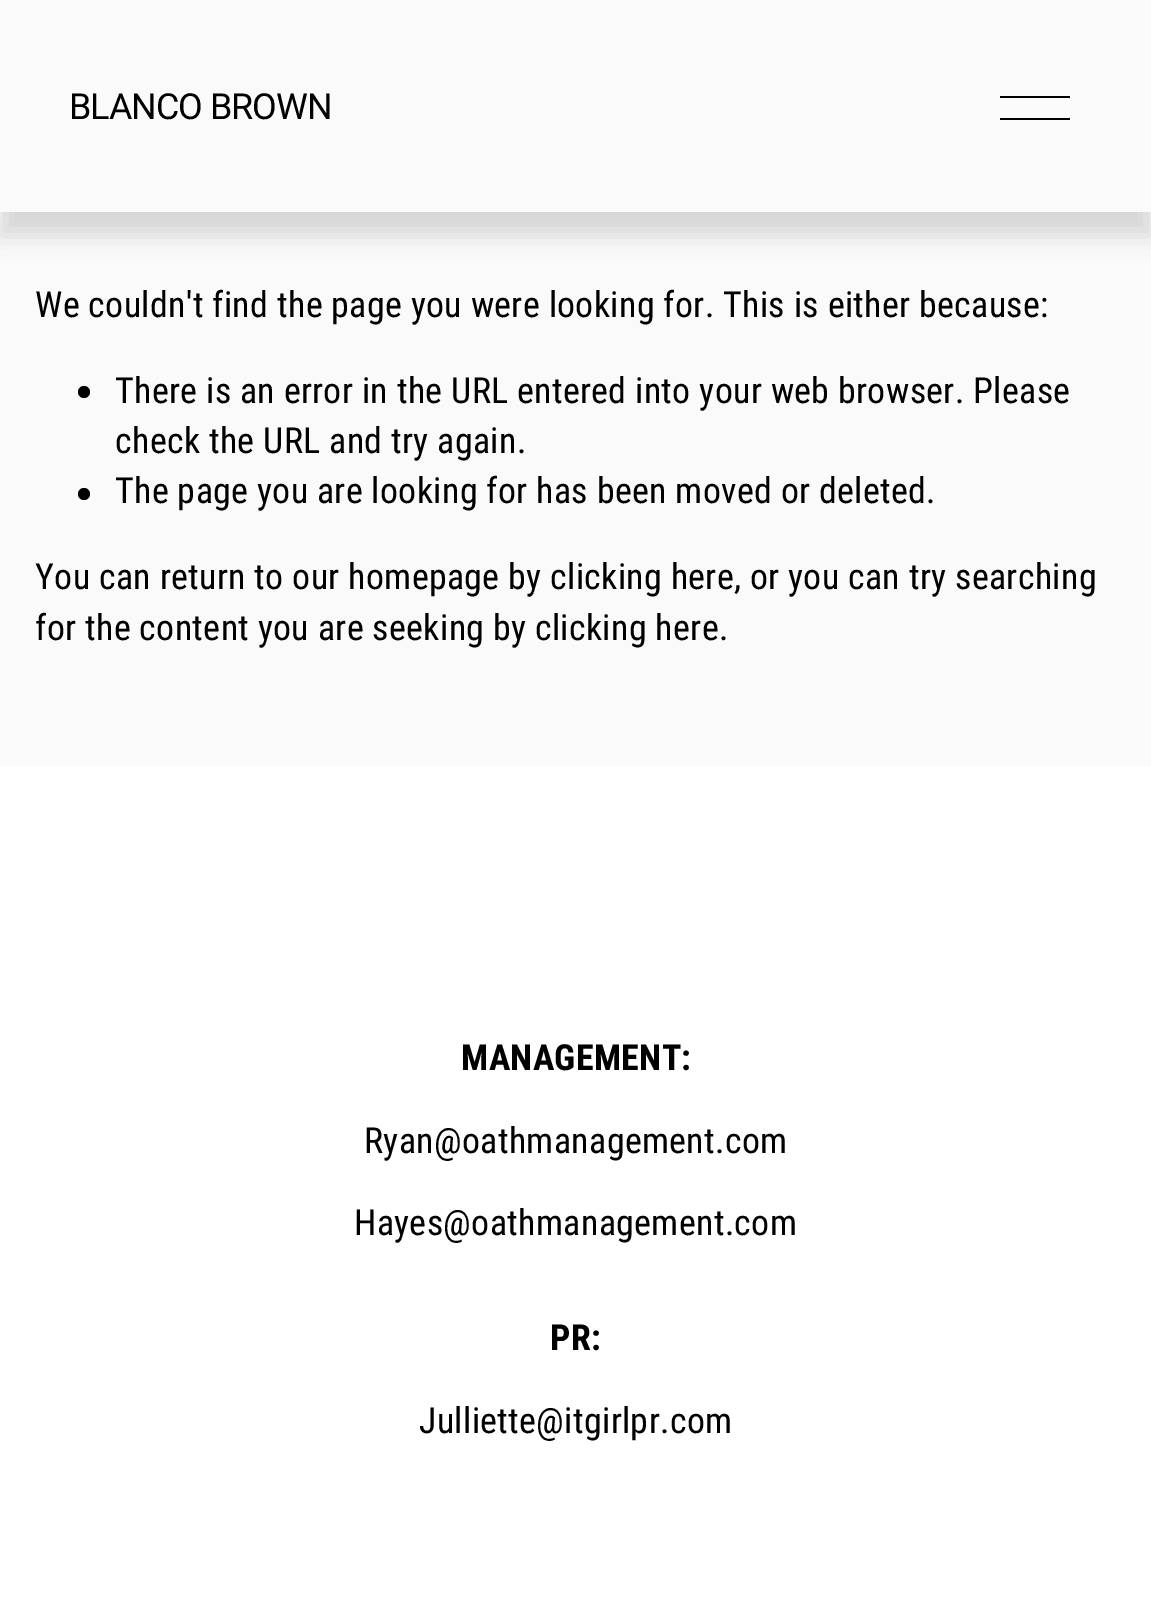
%!PS-Adobe-3.0
%%BoundingBox: 0 0 1151 1624
%%LanguageLevel: 3
%%Pages: 1
%%EndComments
%%BeginProlog
/setink { 3 { 255 div 3 1 roll } repeat setrgbcolor } def
/usefont { [ exch dup neg 0 0 3 -1 roll 0 0 ] selectfont } def
/fillbox { setink rectfill } def
/setalpha { dup .setfillconstantalpha .setstrokeconstantalpha } def
/disc { newpath 0 360 arc closepath } def
/rrect { 5 dict begin { /r /h /w /y /x } { exch def } forall
  x r add y moveto x w add y 2 copy h add r arct x w add y h add x 1 index r arct
  x y h add x y r arct x y 2 copy exch w add exch r arct closepath end } def
/softshadow { 12 dict begin { /a /b /q /h /w /y /x } { exch def } forall gsave /was 0 def
  9 -2 -9 { dup b mul 4 div /e exch def 1 sub .425 mul 2.718 exch exp 1 add a .99 .min exch div /now exch def
    1 1 now sub 1 was sub div sub setalpha /was now def
    w h .min e 2 mul add 0 gt { x e sub y e sub w e 2 mul add h e 2 mul add
      q e add b .6 mul add w h .min 2 div e add .min 0 .max rrect fill } if } for grestore end } def
%%EndProlog
%%BeginSetup
<< /PageSize [1151 1624] /PageUsesTransparency true >> setpagedevice
%%EndSetup
%%Page: 1 1
0 .pushpdf14devicefilter
0 1624 translate 1 -1 scale
4 setmiterlimit
0 0 1151 1624 250 250 250 fillbox
gsave
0 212 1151 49 rectclip
213 213 213 setink
0 24 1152 212 0 12 1 softshadow
grestore
/Roboto-Regular 35.9 usefont
0 0 0 setink
69 119 moveto -1 0 (BLANCO BROWN) ashow
1000 96 70 2 0 0 0 fillbox
1000 118 70 2 0 0 0 fillbox
/RobotoCondensed-Regular 35.9 usefont
35 317 moveto 0.35 0 (We couldn't find the page you were looking for. This is either because:) ashow
84 392 6 disc fill
115 403 moveto 0.35 0 (There is an error in the URL entered into your web browser. Please) ashow
115 453 moveto 0.35 0 (check the URL and try again.) ashow
84 494 6 disc fill
115 503 moveto 0.35 0 (The page you are looking for has been moved or deleted.) ashow
35 589 moveto 0.35 0 (You can return to our homepage by) ashow
550 589 moveto 0.35 0 (clicking here, or you can try searching) ashow
35 640 moveto 0.35 0 (for the content you are seeking by clicking here.) ashow
0 766 1151 858 255 255 255 fillbox
/RobotoCondensed-Bold 35.9 usefont
0 0 0 setink
461 1070 moveto 0.35 0 (MANAGEMENT:) ashow
/RobotoCondensed-Regular 35.9 usefont
364 1153 moveto 0.35 0 (Ryan@oathmanagement.com) ashow
354 1235 moveto 0.35 0 (Hayes@oathmanagement.com) ashow
/RobotoCondensed-Bold 35.9 usefont
550 1350 moveto 0.35 0 (PR:) ashow
/RobotoCondensed-Regular 35.9 usefont
419 1433 moveto 0.35 0 (Julliette@itgirlpr.com) ashow
.poppdf14devicefilter showpage
%%EOF
